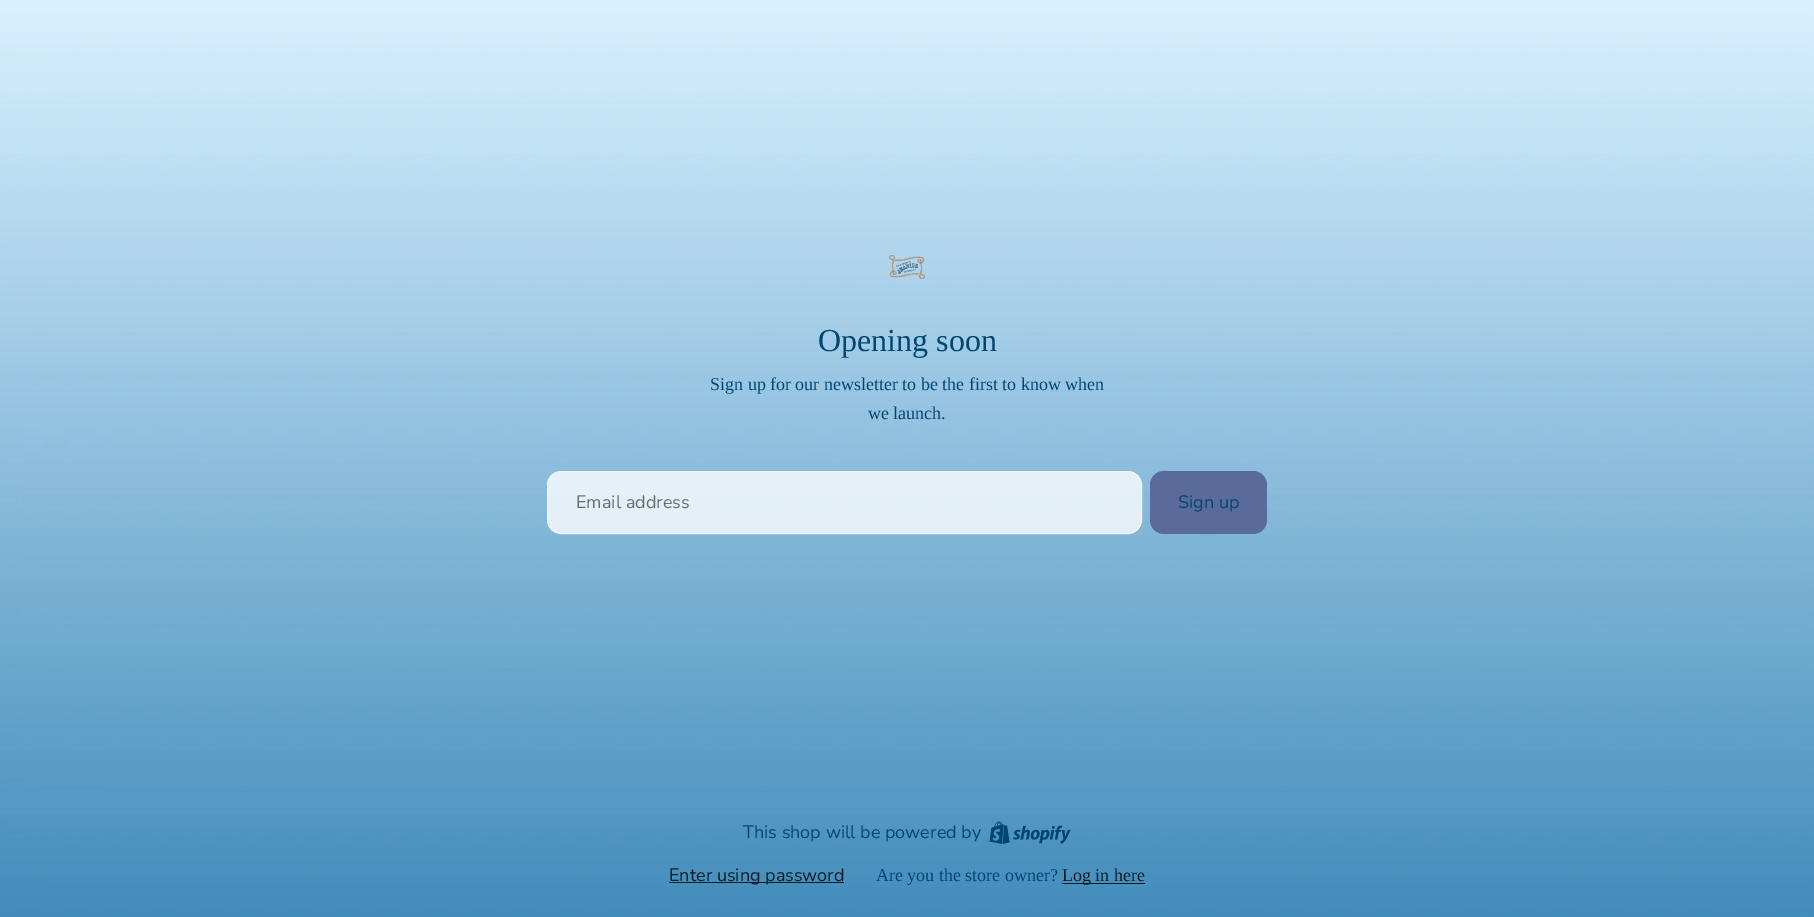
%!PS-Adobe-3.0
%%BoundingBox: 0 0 1814 917
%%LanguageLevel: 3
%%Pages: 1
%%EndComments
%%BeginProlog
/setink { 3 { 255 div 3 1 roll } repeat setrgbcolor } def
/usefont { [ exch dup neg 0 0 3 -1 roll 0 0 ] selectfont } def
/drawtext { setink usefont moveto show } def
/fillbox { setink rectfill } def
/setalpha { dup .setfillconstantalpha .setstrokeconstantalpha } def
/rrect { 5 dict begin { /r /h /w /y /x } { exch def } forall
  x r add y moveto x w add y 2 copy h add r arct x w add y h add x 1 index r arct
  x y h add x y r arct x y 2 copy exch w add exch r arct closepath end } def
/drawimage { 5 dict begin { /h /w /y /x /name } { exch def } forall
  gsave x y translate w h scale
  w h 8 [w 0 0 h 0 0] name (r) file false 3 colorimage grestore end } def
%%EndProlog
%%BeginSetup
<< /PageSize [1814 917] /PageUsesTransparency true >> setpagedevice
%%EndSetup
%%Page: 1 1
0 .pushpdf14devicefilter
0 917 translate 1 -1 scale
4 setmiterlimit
0 0 1814 917 255 255 255 fillbox
(assets/img1.rgb) 0 0 1814 917 drawimage
(assets/img2.rgb) 889 255 36 24 drawimage
(Opening soon) 818 351 /LiberationSerif-Regular 32 0 70 114 drawtext
(Sign up for our newsletter to be the first to know when) 710 390 /LiberationSerif-Regular 18 0 70 114 drawtext
(we launch.) 868 419 /LiberationSerif-Regular 18 0 70 114 drawtext
0.78 setalpha
255 255 255 setink
547.5 471.5 594 62 13.5 rrect fill
1 setalpha
245 245 245 setink
547.5 471.5 594 62 13.5 rrect stroke
(Email address) 576 508 /Nunito-Regular 18 104 108 110 drawtext
90 106 155 setink
1150 471 117 63 14 rrect fill
(Sign up) 1178 508 /Nunito-Regular 18 0 70 114 drawtext
(This shop will be powered by) 743 838 /Nunito-Regular 18 0 70 114 drawtext
(assets/img3.rgb) 989 821 82 23 drawimage
669 882 175 1 14 27 36 fillbox
(Enter using password) 669 881 /Nunito-Regular 18 14 27 36 drawtext
(Are you the store owner?) 876 881 /LiberationSerif-Regular 18 0 70 114 drawtext
1062 883 83 1 13 27 36 fillbox
(Log in here) 1062 881 /LiberationSerif-Regular 18 14 27 36 drawtext
.poppdf14devicefilter showpage
%%EOF
